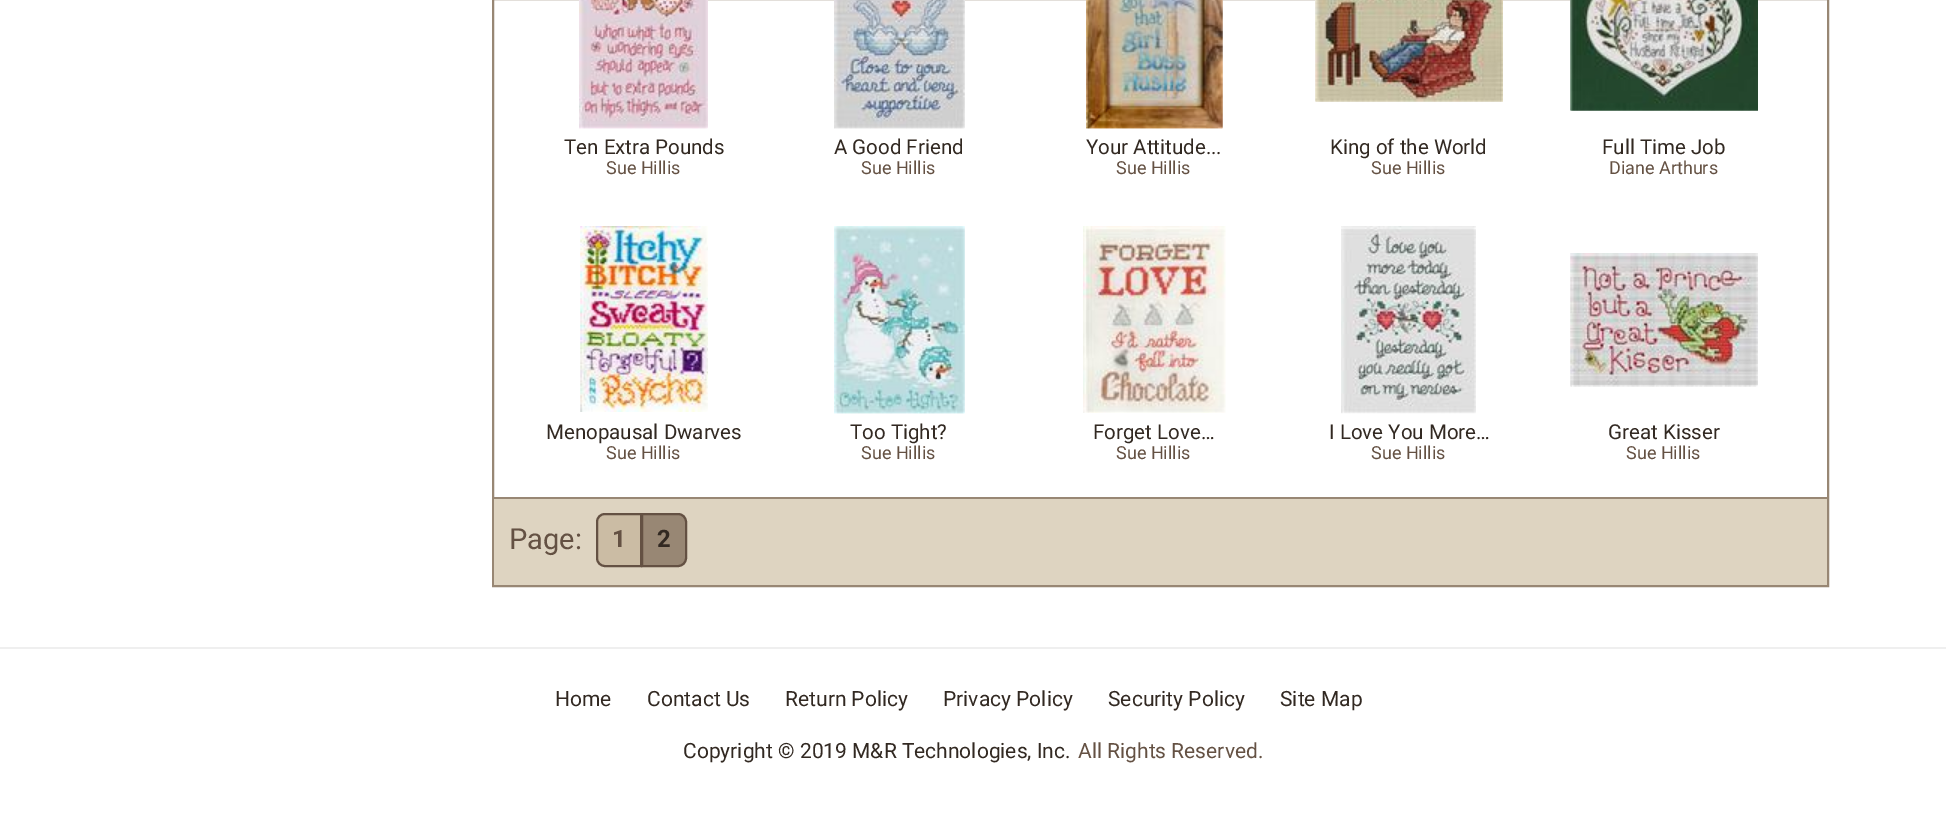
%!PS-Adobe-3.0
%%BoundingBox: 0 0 1946 823
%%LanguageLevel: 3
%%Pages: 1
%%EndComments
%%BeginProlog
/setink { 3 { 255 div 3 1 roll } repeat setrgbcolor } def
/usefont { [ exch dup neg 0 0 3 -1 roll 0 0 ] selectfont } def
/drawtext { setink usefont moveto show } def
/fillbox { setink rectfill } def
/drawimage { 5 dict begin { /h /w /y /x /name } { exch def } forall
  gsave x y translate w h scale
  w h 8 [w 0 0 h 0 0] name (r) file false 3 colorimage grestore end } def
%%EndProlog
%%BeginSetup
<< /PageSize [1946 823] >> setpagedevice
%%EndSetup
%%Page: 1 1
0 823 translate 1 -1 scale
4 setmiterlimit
0 0 1946 823 255 255 255 fillbox
152 135 116 setink
2 setlinewidth
493 -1 1335 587 rectstroke
(assets/img1.rgb) 579 0 129 129 drawimage
(assets/img2.rgb) 579 128 128 1 drawimage
(Ten Extra Pounds) 564 154 /Roboto-Regular 20.5 50 41 34 drawtext
(Sue Hillis) 606 174 /Roboto-Regular 18 100 81 67 drawtext
(assets/img3.rgb) 834 0 131 129 drawimage
(assets/img4.rgb) 834 0 131 129 drawimage
(A Good Friend) 834 154 /Roboto-Regular 20.5 50 41 34 drawtext
(Sue Hillis) 861 174 /Roboto-Regular 18 100 81 67 drawtext
(assets/img5.rgb) 1086 0 137 129 drawimage
(assets/img6.rgb) 1086 0 137 129 drawimage
(Your Attitude...) 1086 154 /Roboto-Regular 20.5 50 41 34 drawtext
(Sue Hillis) 1116 174 /Roboto-Regular 18 100 81 67 drawtext
(assets/img7.rgb) 1315 0 188 102 drawimage
(assets/img8.rgb) 1315 0 188 102 drawimage
(King of the World) 1330 154 /Roboto-Regular 20.5 50 41 34 drawtext
(Sue Hillis) 1371 174 /Roboto-Regular 18 100 81 67 drawtext
(assets/img9.rgb) 1570 0 188 111 drawimage
(assets/img10.rgb) 1570 0 188 111 drawimage
(Full Time Job) 1602 154 /Roboto-Regular 20.5 50 41 34 drawtext
(Diane Arthurs) 1609 174 /Roboto-Regular 18 100 81 67 drawtext
(assets/img11.rgb) 580 226 128 186 drawimage
(assets/img12.rgb) 580 226 1 186 drawimage
(Menopausal Dwarves) 546 439 /Roboto-Regular 20.5 50 41 34 drawtext
(Sue Hillis) 606 459 /Roboto-Regular 18 100 81 67 drawtext
(assets/img13.rgb) 834 226 131 188 drawimage
(assets/img14.rgb) 834 226 131 188 drawimage
(Too Tight?) 850 439 /Roboto-Regular 20.5 50 41 34 drawtext
(Sue Hillis) 861 459 /Roboto-Regular 18 100 81 67 drawtext
(assets/img15.rgb) 1083 226 143 187 drawimage
(Forget Love…) 1093 439 /Roboto-Regular 20.5 50 41 34 drawtext
(Sue Hillis) 1116 459 /Roboto-Regular 18 100 81 67 drawtext
(assets/img16.rgb) 1341 226 135 188 drawimage
(I Love You More…) 1329 439 /Roboto-Regular 20.5 50 41 34 drawtext
(Sue Hillis) 1371 459 /Roboto-Regular 18 100 81 67 drawtext
(assets/img17.rgb) 1570 253 188 134 drawimage
(assets/img18.rgb) 1570 253 186 134 drawimage
(Great Kisser) 1608 439 /Roboto-Regular 20.5 50 41 34 drawtext
(Sue Hillis) 1626 459 /Roboto-Regular 18 100 81 67 drawtext
494 499 1333 86 222 212 193 fillbox
494 497 1333 2 152 135 116 fillbox
(Page:) 509 549 /Roboto-Regular 29 100 81 67 drawtext
152 135 116 setink
642 514 moveto 678 514 lineto 682.5 514 686 517.5 686 522 curveto 686 558 lineto 686 562.5 682.5 566 678 566 curveto 642 566 lineto closepath gsave fill grestore
100 81 67 setink
stroke
203 188 164 setink
605 514 moveto 641 514 lineto 641 566 lineto 605 566 lineto 600.5 566 597 562.5 597 558 curveto 597 522 lineto 597 517.5 600.5 514 605 514 curveto closepath gsave fill grestore
100 81 67 setink
stroke
(1) 612 547 /Roboto-Bold 24 100 81 67 drawtext
(2) 657 547 /Roboto-Bold 24 50 41 34 drawtext
0 647 1946 2 239 239 239 fillbox
(Home) 555 706 /Roboto-Regular 21 50 41 34 drawtext
(Contact Us) 647 706 /Roboto-Regular 21 50 41 34 drawtext
(Return Policy) 785 706 /Roboto-Regular 21 50 41 34 drawtext
(Privacy Policy) 943 706 /Roboto-Regular 21 50 41 34 drawtext
(Security Policy) 1108 706 /Roboto-Regular 21 50 41 34 drawtext
(Site Map) 1280 706 /Roboto-Regular 21 50 41 34 drawtext
(Copyright © 2019 M&R Technologies, Inc.) 683 758 /Roboto-Regular 21 50 41 34 drawtext
(All Rights Reserved.) 1078 758 /Roboto-Regular 21 100 81 67 drawtext
showpage
%%EOF
